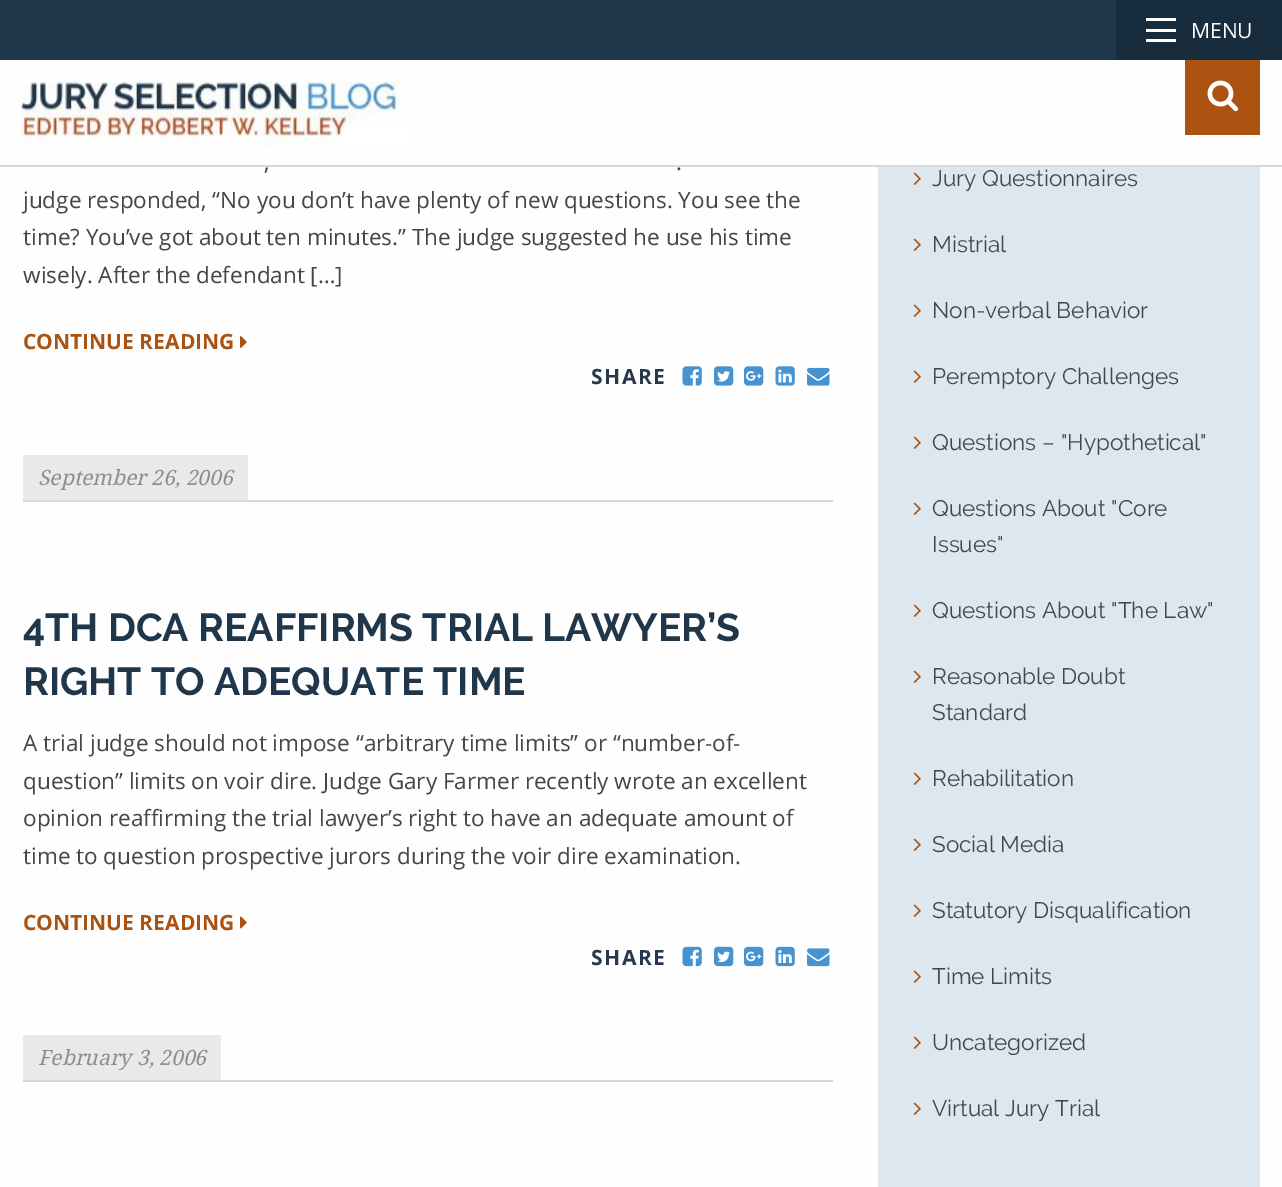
%!PS-Adobe-3.0
%%BoundingBox: 0 0 1282 1187
%%LanguageLevel: 3
%%Pages: 1
%%EndComments
%%BeginProlog
/setink { 3 { 255 div 3 1 roll } repeat setrgbcolor } def
/usefont { [ exch dup neg 0 0 3 -1 roll 0 0 ] selectfont } def
/drawtext { setink usefont moveto show } def
/fillbox { setink rectfill } def
/drawimage { 5 dict begin { /h /w /y /x /name } { exch def } forall
  gsave x y translate w h scale
  w h 8 [w 0 0 h 0 0] name (r) file false 3 colorimage grestore end } def
%%EndProlog
%%BeginSetup
<< /PageSize [1282 1187] >> setpagedevice
%%EndSetup
%%Page: 1 1
0 1187 translate 1 -1 scale
4 setmiterlimit
0 0 1282 1187 254 254 254 fillbox
0 165 1282 2 215 215 215 fillbox
0 0 1116 60 32 54 74 fillbox
1116 0 166 60 23 45 62 fillbox
1146 39 30 3 254 254 254 fillbox
1146 29 30 3 254 254 254 fillbox
1146 18 30 3 254 254 254 fillbox
(MENU) 1191 38 /OpenSans-Regular 21 255 255 255 drawtext
(assets/img1.rgb) 21 80 386 67 drawimage
1185 60 75 75 171 82 16 fillbox
(assets/img2.rgb) 1207 80 32 32 drawimage
23 500 810 2 215 215 215 fillbox
(,) 264 170 /OpenSans-Regular 22.5 70 70 70 drawtext
(.) 676 170 /OpenSans-Regular 22.5 70 70 70 drawtext
(judge responded, “No you don’t have plenty of new questions. You see the) 23 208 /OpenSans-Regular 22.5 70 70 70 drawtext
(time? You’ve got about ten minutes.” The judge suggested he use his time) 23 245 /OpenSans-Regular 22.5 70 70 70 drawtext
(wisely. After the defendant […]) 23 283 /OpenSans-Regular 22.5 70 70 70 drawtext
(CONTINUE READING) 23 349 /OpenSans-Bold 21 171 82 16 drawtext
(assets/img3.rgb) 240 336 7 12 drawimage
39 55 76 setink
591 384 moveto 1.5 0 (SHARE) ashow
(assets/img4.rgb) 682 366 20 20 drawimage
(assets/img5.rgb) 714 366 20 20 drawimage
(assets/img6.rgb) 744 366 20 20 drawimage
(assets/img7.rgb) 775 366 20 20 drawimage
(assets/img8.rgb) 807 367 23 19 drawimage
23 455 225 45 234 233 233 fillbox
(September 26, 2006) 38 485 /DroidSerif-Italic 21 143 141 141 drawtext
23 1080 810 2 215 215 215 fillbox
(4TH DCA REAFFIRMS TRIAL LAWYER’S) 23 641 /Raleway-Bold 39 32 54 74 drawtext
(RIGHT TO ADEQUATE TIME) 23 695 /Raleway-Bold 39 32 54 74 drawtext
(A trial judge should not impose “arbitrary time limits” or “number-of-) 23 751 /OpenSans-Regular 22.5 70 70 70 drawtext
(question” limits on voir dire. Judge Gary Farmer recently wrote an excellent) 23 789 /OpenSans-Regular 22.5 70 70 70 drawtext
(opinion reaffirming the trial lawyer’s right to have an adequate amount of) 23 826 /OpenSans-Regular 22.5 70 70 70 drawtext
(time to question prospective jurors during the voir dire examination.) 23 864 /OpenSans-Regular 22.5 70 70 70 drawtext
(CONTINUE READING) 23 930 /OpenSans-Bold 21 171 82 16 drawtext
(assets/img9.rgb) 240 916 7 13 drawimage
39 55 76 setink
591 965 moveto 1.5 0 (SHARE) ashow
(assets/img10.rgb) 682 946 20 21 drawimage
(assets/img11.rgb) 714 946 20 21 drawimage
(assets/img12.rgb) 744 946 20 21 drawimage
(assets/img13.rgb) 775 946 20 21 drawimage
(assets/img14.rgb) 807 948 23 19 drawimage
23 1035 198 45 234 233 233 fillbox
(February 3, 2006) 38 1065 /DroidSerif-Italic 21 143 141 141 drawtext
878 167 382 1020 221 231 239 fillbox
(assets/img15.rgb) 913 172 8 13 drawimage
(Jury Questionnaires) 932 186 /Raleway-Regular 22.5 70 70 70 drawtext
(assets/img15.rgb) 913 238 8 13 drawimage
(Mistrial) 932 252 /Raleway-Regular 22.5 70 70 70 drawtext
(assets/img15.rgb) 913 304 8 13 drawimage
(Non-verbal Behavior) 932 318 /Raleway-Regular 22.5 70 70 70 drawtext
(assets/img15.rgb) 913 370 8 13 drawimage
(Peremptory Challenges) 932 384 /Raleway-Regular 22.5 70 70 70 drawtext
(assets/img15.rgb) 913 436 8 13 drawimage
(Questions – "Hypothetical") 932 450 /Raleway-Regular 22.5 70 70 70 drawtext
(assets/img15.rgb) 913 502 8 13 drawimage
(Questions About "Core) 932 516 /Raleway-Regular 22.5 70 70 70 drawtext
(Issues") 932 552 /Raleway-Regular 22.5 70 70 70 drawtext
(assets/img15.rgb) 913 604 8 13 drawimage
(Questions About "The Law") 932 618 /Raleway-Regular 22.5 70 70 70 drawtext
(assets/img15.rgb) 913 670 8 13 drawimage
(Reasonable Doubt) 932 684 /Raleway-Regular 22.5 70 70 70 drawtext
(Standard) 932 720 /Raleway-Regular 22.5 70 70 70 drawtext
(assets/img15.rgb) 913 772 8 13 drawimage
(Rehabilitation) 932 786 /Raleway-Regular 22.5 70 70 70 drawtext
(assets/img15.rgb) 913 838 8 13 drawimage
(Social Media) 932 852 /Raleway-Regular 22.5 70 70 70 drawtext
(assets/img15.rgb) 913 904 8 13 drawimage
(Statutory Disqualification) 932 918 /Raleway-Regular 22.5 70 70 70 drawtext
(assets/img15.rgb) 913 970 8 13 drawimage
(Time Limits) 932 984 /Raleway-Regular 22.5 70 70 70 drawtext
(assets/img15.rgb) 913 1036 8 13 drawimage
(Uncategorized) 932 1050 /Raleway-Regular 22.5 70 70 70 drawtext
(assets/img15.rgb) 913 1102 8 13 drawimage
(Virtual Jury Trial) 932 1116 /Raleway-Regular 22.5 70 70 70 drawtext
showpage
%%EOF
